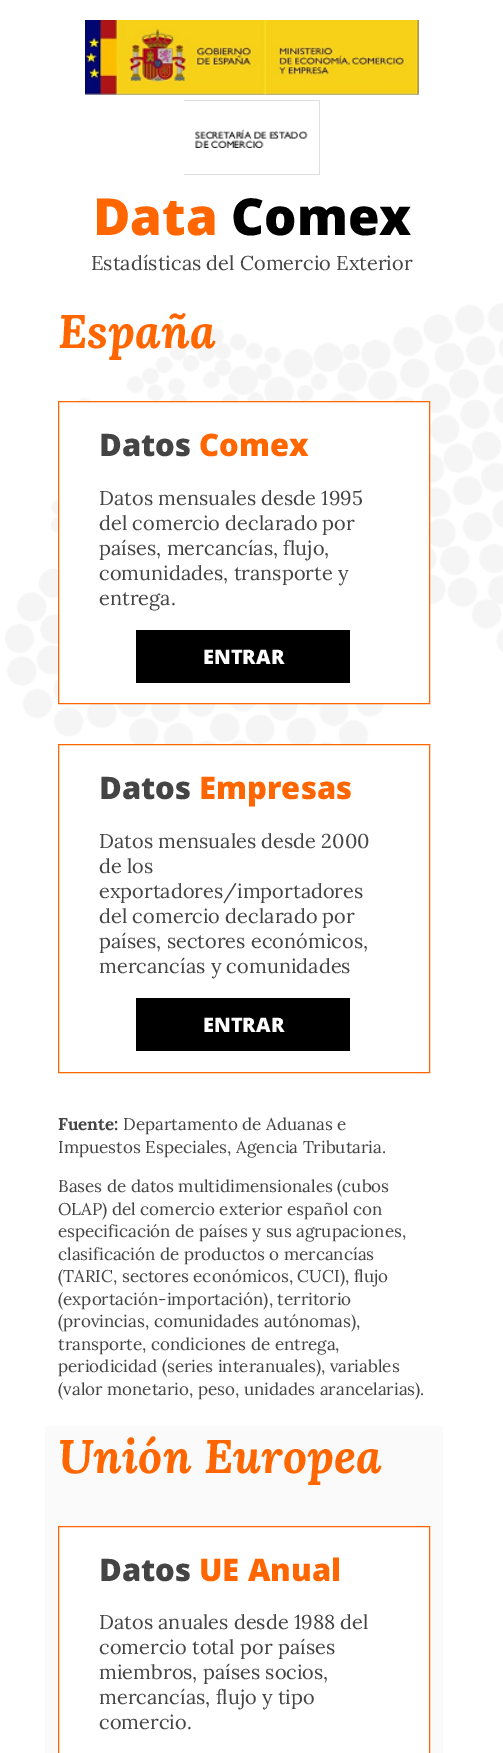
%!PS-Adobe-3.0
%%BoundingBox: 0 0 503 1753
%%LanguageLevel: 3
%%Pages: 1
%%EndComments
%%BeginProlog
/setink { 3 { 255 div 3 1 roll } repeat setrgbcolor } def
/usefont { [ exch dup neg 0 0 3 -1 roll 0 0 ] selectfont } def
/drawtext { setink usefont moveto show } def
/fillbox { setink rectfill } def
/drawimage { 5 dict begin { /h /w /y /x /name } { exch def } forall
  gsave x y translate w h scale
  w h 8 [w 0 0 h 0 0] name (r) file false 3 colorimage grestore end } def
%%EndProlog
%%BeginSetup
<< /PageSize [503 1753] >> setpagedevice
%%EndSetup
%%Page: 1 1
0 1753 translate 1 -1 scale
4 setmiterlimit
0 0 503 1753 255 255 255 fillbox
(assets/img1.rgb) 85 20 334 75 drawimage
(assets/img2.rgb) 183 100 137 75 drawimage
(Data) 93 235 /OpenSans-ExtraBold 51 255 102 0 drawtext
(Comex) 231 235 /OpenSans-ExtraBold 51 0 0 0 drawtext
(Estadísticas del Comercio Exterior) 91 270 /Lora-Regular 20 68 68 68 drawtext
(assets/img3.rgb) 5 303 498 441 drawimage
(España) 58 348 /Lora-BoldItalic 47 255 102 0 drawtext
255 255 255 setink
58.5 401.5 moveto 429.5 401.5 lineto 429.5 703.5 lineto 58.5 703.5 lineto closepath gsave fill grestore
255 102 0 setink
stroke
(Datos) 99 456 /OpenSans-ExtraBold 31 68 68 68 drawtext
(Comex) 199 456 /OpenSans-ExtraBold 31 255 102 0 drawtext
(Datos mensuales desde 1995) 99 505 /Lora-Regular 20 68 68 68 drawtext
(del comercio declarado por) 99 530 /Lora-Regular 20 68 68 68 drawtext
(países, mercancías, flujo,) 99 555 /Lora-Regular 20 68 68 68 drawtext
(comunidades, transporte y) 99 580 /Lora-Regular 20 68 68 68 drawtext
(entrega.) 99 605 /Lora-Regular 20 68 68 68 drawtext
136 630 214 53 0 0 0 fillbox
(ENTRAR) 203 664 /OpenSans-ExtraBold 20 255 255 255 drawtext
255 102 0 setink
58.5 744.5 371 328 rectstroke
(Datos) 99 799 /OpenSans-ExtraBold 31 68 68 68 drawtext
(Empresas) 199 799 /OpenSans-ExtraBold 31 255 102 0 drawtext
(Datos mensuales desde 2000) 99 848 /Lora-Regular 20 68 68 68 drawtext
(de los) 99 873 /Lora-Regular 20 68 68 68 drawtext
(exportadores/importadores) 99 898 /Lora-Regular 20 68 68 68 drawtext
(del comercio declarado por) 99 923 /Lora-Regular 20 68 68 68 drawtext
(países, sectores económicos,) 99 948 /Lora-Regular 20 68 68 68 drawtext
(mercancías y comunidades) 99 973 /Lora-Regular 20 68 68 68 drawtext
136 998 214 53 0 0 0 fillbox
(ENTRAR) 203 1032 /OpenSans-ExtraBold 20 255 255 255 drawtext
(Fuente:) 58 1130 /Lora-Bold 17 68 68 68 drawtext
(Departamento de Aduanas e) 123 1130 /Lora-Regular 17 68 68 68 drawtext
(Impuestos Especiales, Agencia Tributaria.) 58 1153 /Lora-Regular 17 68 68 68 drawtext
(Bases de datos multidimensionales \(cubos) 58 1192 /Lora-Regular 17 68 68 68 drawtext
(OLAP\) del comercio exterior español con) 58 1215 /Lora-Regular 17 68 68 68 drawtext
(especificación de países y sus agrupaciones,) 58 1237 /Lora-Regular 17 68 68 68 drawtext
(clasificación de productos o mercancías) 58 1260 /Lora-Regular 17 68 68 68 drawtext
(\(TARIC, sectores económicos, CUCI\), flujo) 58 1282 /Lora-Regular 17 68 68 68 drawtext
(\(exportación-importación\), territorio) 58 1305 /Lora-Regular 17 68 68 68 drawtext
(\(provincias, comunidades autónomas\),) 58 1327 /Lora-Regular 17 68 68 68 drawtext
(transporte, condiciones de entrega,) 58 1350 /Lora-Regular 17 68 68 68 drawtext
(periodicidad \(series interanuales\), variables) 58 1372 /Lora-Regular 17 68 68 68 drawtext
(\(valor monetario, peso, unidades arancelarias\).) 58 1395 /Lora-Regular 17 68 68 68 drawtext
45 1426 398 327 250 250 250 fillbox
(Unión Europea) 58 1473 /Lora-BoldItalic 47 255 102 0 drawtext
255 255 255 setink
58.5 1526.5 moveto 429.5 1526.5 lineto 429.5 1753.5 lineto 58.5 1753.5 lineto closepath gsave fill grestore
255 102 0 setink
stroke
(Datos) 99 1581 /OpenSans-ExtraBold 31 68 68 68 drawtext
(UE Anual) 199 1581 /OpenSans-ExtraBold 31 255 102 0 drawtext
(Datos anuales desde 1988 del) 99 1629 /Lora-Regular 20 68 68 68 drawtext
(comercio total por países) 99 1654 /Lora-Regular 20 68 68 68 drawtext
(miembros, países socios,) 99 1679 /Lora-Regular 20 68 68 68 drawtext
(mercancías, flujo y tipo) 99 1704 /Lora-Regular 20 68 68 68 drawtext
(comercio.) 99 1729 /Lora-Regular 20 68 68 68 drawtext
showpage
%%EOF
